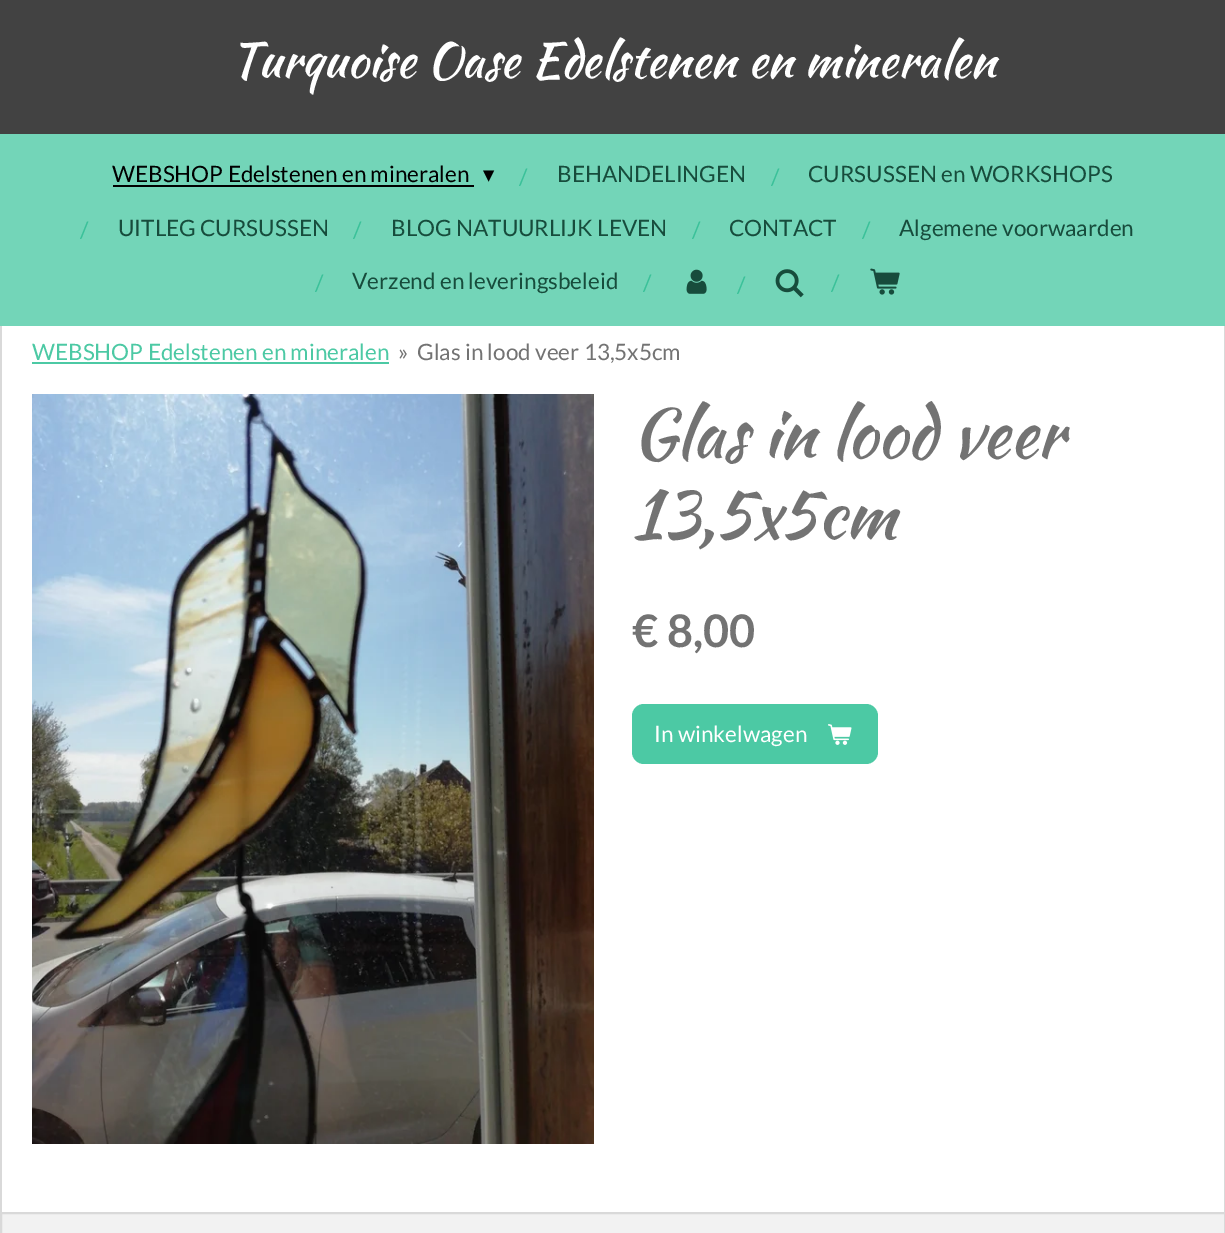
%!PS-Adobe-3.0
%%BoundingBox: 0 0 1225 1233
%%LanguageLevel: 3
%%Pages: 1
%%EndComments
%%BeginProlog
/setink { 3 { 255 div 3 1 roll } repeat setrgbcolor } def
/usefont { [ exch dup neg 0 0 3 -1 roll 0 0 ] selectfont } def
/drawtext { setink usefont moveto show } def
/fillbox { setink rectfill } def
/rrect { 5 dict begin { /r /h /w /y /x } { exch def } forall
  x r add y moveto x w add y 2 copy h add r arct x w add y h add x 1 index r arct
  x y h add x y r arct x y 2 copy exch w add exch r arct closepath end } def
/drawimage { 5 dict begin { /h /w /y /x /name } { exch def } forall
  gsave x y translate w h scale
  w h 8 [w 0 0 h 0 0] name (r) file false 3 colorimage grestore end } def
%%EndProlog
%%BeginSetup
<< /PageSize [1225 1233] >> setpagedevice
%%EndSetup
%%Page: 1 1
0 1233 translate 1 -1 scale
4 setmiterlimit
0 0 1225 1233 255 255 255 fillbox
66 66 66 setink
15 -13 moveto 1211 -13 lineto 1219.5 -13 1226 -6.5 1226 2 curveto 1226 134 lineto 0 134 lineto 0 2 lineto 0 -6.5 6.5 -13 15 -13 curveto closepath fill
(Turquoise Oase Edelstenen en mineralen) 230 77 /KaushanScript-Regular 48 255 255 255 drawtext
0 134 1225 192 115 213 184 fillbox
(WEBSHOP Edelstenen en mineralen) 112 182 /Lato-Regular 22.5 0 0 0 drawtext
113 185 361 2 0 0 0 fillbox
(▾) 483 182 /DejaVuSans-Regular 22.5 0 0 0 drawtext
(/) 519 185 /Lato-Regular 22.5 58 193 153 drawtext
(BEHANDELINGEN) 557 182 /Lato-Regular 22.5 23 76 60 drawtext
(/) 771 185 /Lato-Regular 22.5 58 193 153 drawtext
(CURSUSSEN en WORKSHOPS) 808 182 /Lato-Regular 22.5 23 76 60 drawtext
(/) 80 238 /Lato-Regular 22.5 58 193 153 drawtext
(UITLEG CURSUSSEN) 118 236 /Lato-Regular 22.5 23 76 60 drawtext
(/) 353 238 /Lato-Regular 22.5 58 193 153 drawtext
(BLOG NATUURLIJK LEVEN) 391 236 /Lato-Regular 22.5 23 76 60 drawtext
(/) 692 238 /Lato-Regular 22.5 58 193 153 drawtext
(CONTACT) 729 236 /Lato-Regular 22.5 23 76 60 drawtext
(/) 862 238 /Lato-Regular 22.5 58 193 153 drawtext
(Algemene voorwaarden) 899 236 /Lato-Regular 22.5 23 76 60 drawtext
(/) 315 291 /Lato-Regular 22.5 58 193 153 drawtext
(Verzend en leveringsbeleid) 352 289 /Lato-Regular 22.5 23 76 60 drawtext
(/) 643 291 /Lato-Regular 22.5 58 193 153 drawtext
(assets/img1.rgb) 686 269 21 25 drawimage
(/) 737 293 /Lato-Regular 22.5 58 193 153 drawtext
(assets/img2.rgb) 775 269 29 29 drawimage
(/) 831 291 /Lato-Regular 22.5 58 193 153 drawtext
(assets/img3.rgb) 870 268 30 27 drawimage
1224 326 1 886 217 217 217 fillbox
0 326 2 886 217 217 217 fillbox
(WEBSHOP Edelstenen en mineralen) 32 360 /Lato-Regular 22.5 76 201 164 drawtext
32 362 357 2 76 201 164 fillbox
(») 398 360 /Lato-Regular 22.5 115 115 115 drawtext
(Glas in lood veer 13,5x5cm) 417 360 /Lato-Regular 22.5 115 115 115 drawtext
(assets/img4.rgb) 32 394 562 750 drawimage
(Glas in lood veer) 632 457 /KaushanScript-Regular 67.5 115 115 115 drawtext
(13,5x5cm) 632 538 /KaushanScript-Regular 67.5 115 115 115 drawtext
(€ 8,00) 632 647 /Lato-Bold 45 115 115 115 drawtext
76 201 164 setink
632 704 246 60 12 rrect fill
(In winkelwagen) 654 742 /Lato-Regular 22.5 255 255 255 drawtext
(assets/img5.rgb) 828 724 24 21 drawimage
242 242 242 setink
1 1213 moveto 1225 1213 lineto 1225 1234 lineto 1 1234 lineto closepath gsave fill grestore
217 217 217 setink
2 setlinewidth
stroke
showpage
%%EOF
